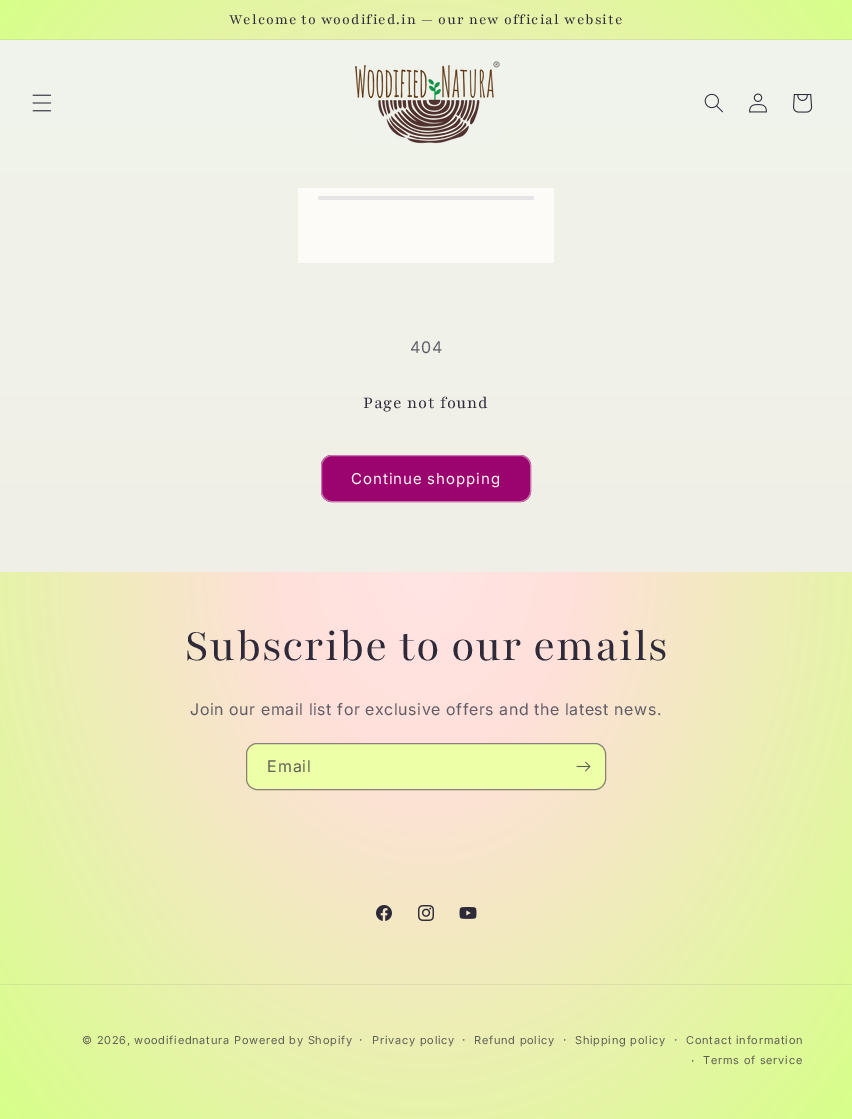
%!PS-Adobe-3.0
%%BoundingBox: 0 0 852 1119
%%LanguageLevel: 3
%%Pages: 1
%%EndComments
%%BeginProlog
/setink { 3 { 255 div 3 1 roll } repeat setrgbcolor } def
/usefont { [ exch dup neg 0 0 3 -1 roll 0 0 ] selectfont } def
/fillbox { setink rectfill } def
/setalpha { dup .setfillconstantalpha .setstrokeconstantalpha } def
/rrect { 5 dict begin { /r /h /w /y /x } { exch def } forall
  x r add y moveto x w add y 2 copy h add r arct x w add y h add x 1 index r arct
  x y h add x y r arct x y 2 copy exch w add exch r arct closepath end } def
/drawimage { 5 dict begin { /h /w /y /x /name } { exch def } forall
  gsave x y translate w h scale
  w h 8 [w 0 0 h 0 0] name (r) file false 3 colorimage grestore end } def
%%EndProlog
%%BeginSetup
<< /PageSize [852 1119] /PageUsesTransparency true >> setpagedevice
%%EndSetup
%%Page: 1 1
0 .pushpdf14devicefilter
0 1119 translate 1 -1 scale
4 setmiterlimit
0 0 852 1119 255 255 255 fillbox
gsave 0 40 moveto 852 40 lineto 852 572 lineto 0 572 lineto closepath clip newpath
<< /ShadingType 2 /ColorSpace /DeviceRGB /Coords [426 0 426 1119] /Extend [true true] /Function << /FunctionType 2 /Domain [0 1] /C0 [0.941 0.957 0.925] /C1 [0.945 0.922 0.886] /N 1 >> >> shfill grestore
gsave 0 0 moveto 852 0 lineto 852 39 lineto 0 39 lineto closepath clip newpath 426 560 translate 602 791 scale
<< /ShadingType 3 /ColorSpace /DeviceRGB /Coords [0 0 0 0 0 1] /Extend [true true] /Function << /FunctionType 3 /Domain [0 1] /Functions [<< /FunctionType 2 /Domain [0 1] /C0 [1 0.898 0.898] /C1 [1 0.878 0.855] /N 1 >> << /FunctionType 2 /Domain [0 1] /C0 [1 0.878 0.855] /C1 [0.843 1 0.537] /N 1 >>] /Bounds [0.25] /Encode [0 1 0 1] >> >> shfill grestore
gsave 0 39 moveto 852 39 lineto 852 40 lineto 0 40 lineto closepath clip newpath 426 560 translate 602 791 scale
<< /ShadingType 3 /ColorSpace /DeviceRGB /Coords [0 0 0 0 0 1] /Extend [true true] /Function << /FunctionType 3 /Domain [0 1] /Functions [<< /FunctionType 2 /Domain [0 1] /C0 [0.933 0.839 0.843] /C1 [0.933 0.82 0.804] /N 1 >> << /FunctionType 2 /Domain [0 1] /C0 [0.933 0.82 0.804] /C1 [0.788 0.933 0.514] /N 1 >>] /Bounds [0.25] /Encode [0 1 0 1] >> >> shfill grestore
/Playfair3-Regular 15.6 usefont
46 42 57 setink
229 24 moveto 1 0 (Welcome to woodified.in — our new official website) ashow
(assets/img1.rgb) 32 94 20 18 drawimage
(assets/img2.rgb) 355 61 145 83 drawimage
(assets/img3.rgb) 704 93 19 20 drawimage
(assets/img4.rgb) 749 93 18 20 drawimage
(assets/img5.rgb) 793 94 20 19 drawimage
298 188 256 75 253 251 247 fillbox
229 229 229 setink
318 196 216 4 2 rrect fill
/Inter-Regular 16 usefont
95 92 101 setink
410 353 moveto 0.6 0 (404) ashow
/Playfair-Regular 18 usefont
46 42 57 setink
363 408 moveto 0.75 0 (Page not found) ashow
155 4 111 setink
321 455 210 47 11 rrect fill
321.5 455.5 209 46 10.5 rrect stroke
0.45 setalpha
253 251 247 setink
321.5 455.5 209 46 10.5 rrect stroke
/Inter-Regular 15 usefont
1 setalpha
351 484 moveto -1 0 32 1 0 (Continue shopping) awidthshow
gsave 0 572 moveto 852 572 lineto 852 798 lineto 0 798 lineto closepath clip newpath 426 560 translate 602 791 scale
<< /ShadingType 3 /ColorSpace /DeviceRGB /Coords [0 0 0 0 0 1] /Extend [true true] /Function << /FunctionType 3 /Domain [0 1] /Functions [<< /FunctionType 2 /Domain [0 1] /C0 [1 0.898 0.898] /C1 [1 0.878 0.855] /N 1 >> << /FunctionType 2 /Domain [0 1] /C0 [1 0.878 0.855] /C1 [0.843 1 0.537] /N 1 >>] /Bounds [0.25] /Encode [0 1 0 1] >> >> shfill grestore
/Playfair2-Regular 48 usefont
46 42 57 setink
185 660 moveto 0.75 0 (Subscribe to our emails) ashow
/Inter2-Regular 16 usefont
95 92 101 setink
190 715 moveto 0.6 0 (Join our email list for exclusive offers and the latest news.) ashow
237 255 167 setink
247 744 358 45 10 rrect fill
0.55 setalpha
46 42 57 setink
246.5 743.5 359 46 10.5 rrect stroke
1 setalpha
94 95 85 setink
267 772 moveto 1 0 (Email) ashow
(assets/img6.rgb) 576 761 15 11 drawimage
gsave 0 798 moveto 852 798 lineto 852 1119 lineto 0 1119 lineto closepath clip newpath 426 560 translate 602 791 scale
<< /ShadingType 3 /ColorSpace /DeviceRGB /Coords [0 0 0 0 0 1] /Extend [true true] /Function << /FunctionType 3 /Domain [0 1] /Functions [<< /FunctionType 2 /Domain [0 1] /C0 [1 0.898 0.898] /C1 [1 0.878 0.855] /N 1 >> << /FunctionType 2 /Domain [0 1] /C0 [1 0.878 0.855] /C1 [0.843 1 0.537] /N 1 >>] /Bounds [0.25] /Encode [0 1 0 1] >> >> shfill grestore
gsave 0 984 moveto 852 984 lineto 852 985 lineto 0 985 lineto closepath clip newpath 426 560 translate 602 791 scale
<< /ShadingType 3 /ColorSpace /DeviceRGB /Coords [0 0 0 0 0 1] /Extend [true true] /Function << /FunctionType 3 /Domain [0 1] /Functions [<< /FunctionType 2 /Domain [0 1] /C0 [0.933 0.839 0.843] /C1 [0.933 0.82 0.804] /N 1 >> << /FunctionType 2 /Domain [0 1] /C0 [0.933 0.82 0.804] /C1 [0.788 0.933 0.514] /N 1 >>] /Bounds [0.25] /Encode [0 1 0 1] >> >> shfill grestore
(assets/img7.rgb) 376 905 16 16 drawimage
(assets/img8.rgb) 418 905 16 16 drawimage
(assets/img9.rgb) 459 907 18 12 drawimage
/Inter-Regular 11 usefont
82 1044 moveto 0.75 0 (© 2026,) ashow
134 1044 moveto 0.75 0 (woodifiednatura) ashow
234 1044 moveto 0.75 0 (Powered by Shopify) ashow
/Inter-Regular 12 usefont
359 1044 moveto 0.75 0 (·) ashow
/Inter-Regular 11 usefont
372 1044 moveto 0.75 0 (Privacy policy) ashow
/Inter-Regular 12 usefont
462 1044 moveto 0.75 0 (·) ashow
/Inter-Regular 11 usefont
474 1044 moveto 0.75 0 (Refund policy) ashow
/Inter-Regular 12 usefont
563 1044 moveto 0.75 0 (·) ashow
/Inter-Regular 11 usefont
575 1044 moveto 0.75 0 (Shipping policy) ashow
/Inter-Regular 12 usefont
674 1044 moveto 0.75 0 (·) ashow
/Inter-Regular 11 usefont
686 1044 moveto 0.75 0 (Contact information) ashow
/Inter-Regular 12 usefont
691 1065 moveto 0.75 0 (·) ashow
/Inter-Regular 11 usefont
703 1064 moveto 0.75 0 (Terms of service) ashow
.poppdf14devicefilter showpage
%%EOF
